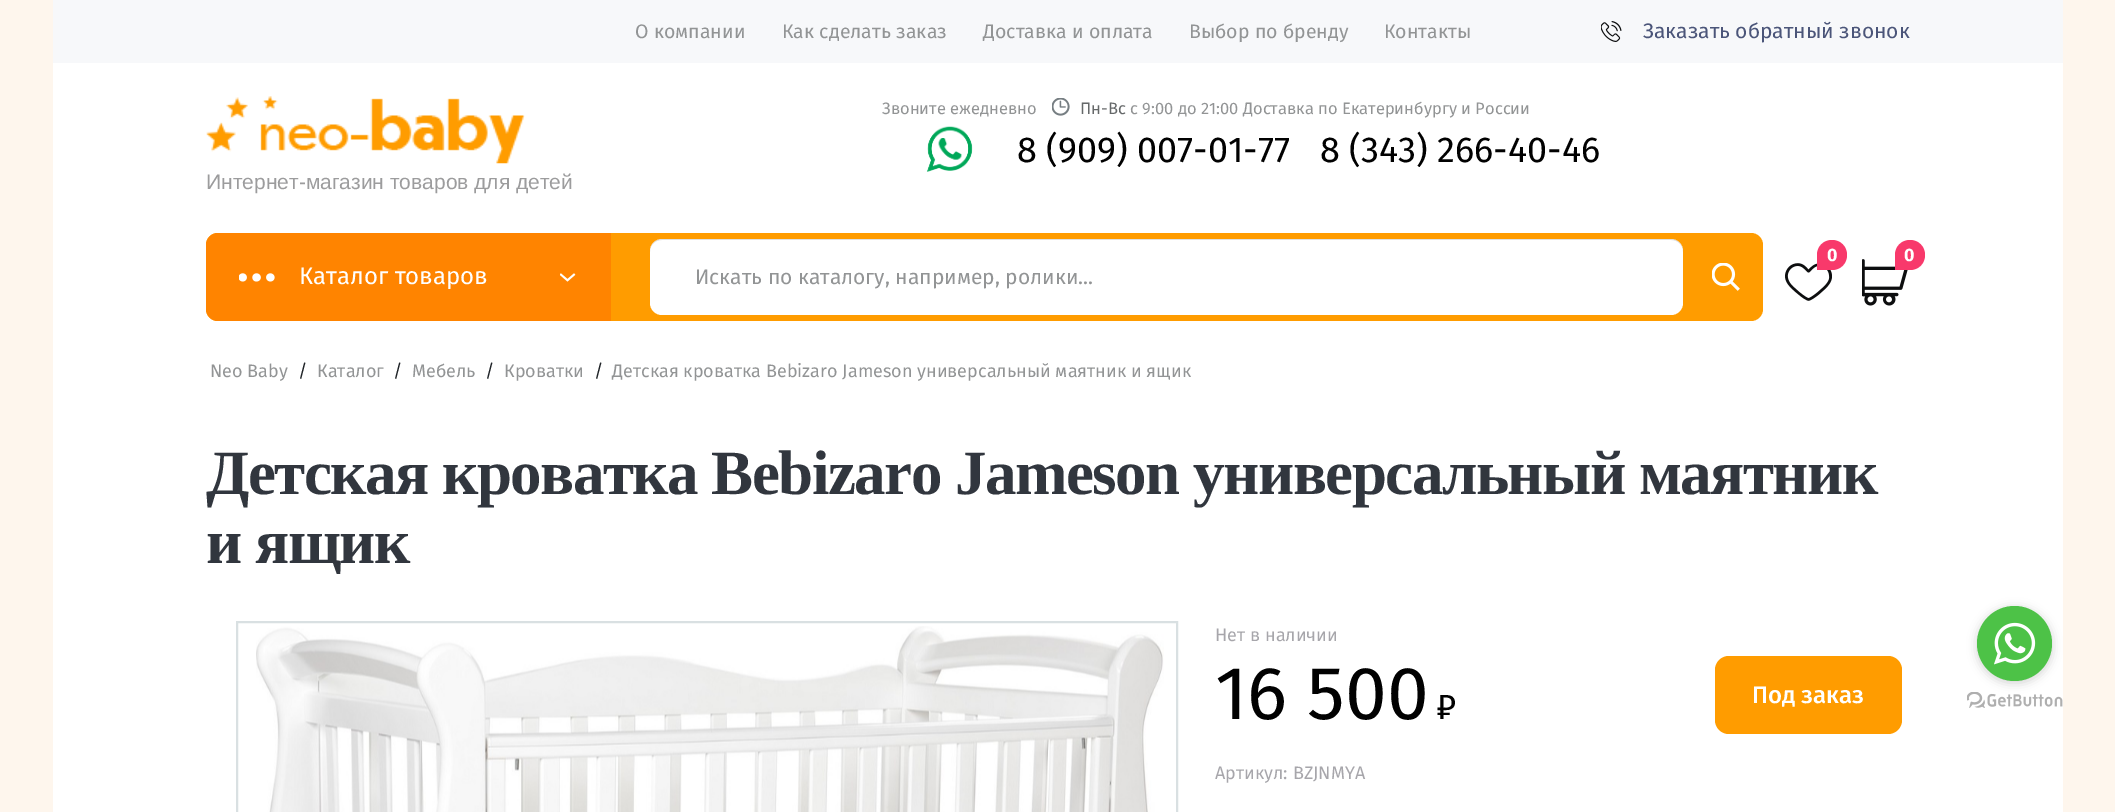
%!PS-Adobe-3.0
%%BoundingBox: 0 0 2115 812
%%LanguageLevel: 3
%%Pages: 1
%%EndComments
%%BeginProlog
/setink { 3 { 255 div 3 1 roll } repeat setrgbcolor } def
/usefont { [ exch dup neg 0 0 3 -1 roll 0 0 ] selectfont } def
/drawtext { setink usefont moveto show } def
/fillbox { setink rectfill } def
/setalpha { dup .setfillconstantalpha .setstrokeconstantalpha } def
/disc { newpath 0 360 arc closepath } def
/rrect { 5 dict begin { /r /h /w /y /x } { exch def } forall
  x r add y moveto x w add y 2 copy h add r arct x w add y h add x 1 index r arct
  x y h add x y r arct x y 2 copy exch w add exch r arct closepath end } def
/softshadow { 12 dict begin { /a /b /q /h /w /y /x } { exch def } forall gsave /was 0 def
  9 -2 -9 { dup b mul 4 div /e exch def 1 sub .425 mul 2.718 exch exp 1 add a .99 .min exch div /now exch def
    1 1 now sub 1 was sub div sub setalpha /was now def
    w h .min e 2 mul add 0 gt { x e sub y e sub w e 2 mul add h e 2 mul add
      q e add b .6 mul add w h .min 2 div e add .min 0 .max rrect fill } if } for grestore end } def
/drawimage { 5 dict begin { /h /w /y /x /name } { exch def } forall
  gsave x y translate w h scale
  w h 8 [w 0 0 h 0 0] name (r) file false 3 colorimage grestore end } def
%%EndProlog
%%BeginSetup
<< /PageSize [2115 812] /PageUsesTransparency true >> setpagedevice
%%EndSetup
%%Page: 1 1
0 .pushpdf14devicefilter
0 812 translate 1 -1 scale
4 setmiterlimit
0 0 2115 812 254 246 237 fillbox
53 0 2010 63 247 248 250 fillbox
(О компании) 635 38 /FiraSans-Regular 19.5 146 148 149 drawtext
(Как сделать заказ) 782 38 /FiraSans-Regular 19.5 146 148 149 drawtext
(Доставка и оплата) 983 38 /FiraSans-Regular 19.5 146 148 149 drawtext
(Выбор по бренду) 1189 38 /FiraSans-Regular 19.5 146 148 149 drawtext
(Контакты) 1384 38 /FiraSans-Regular 19.5 146 148 149 drawtext
(assets/img1.rgb) 1601 21 21 21 drawimage
(Заказать обратный звонок) 1643 38 /FiraSans-Regular 21 75 85 121 drawtext
53 63 2010 170 255 255 255 fillbox
(Звоните ежедневно) 882 114 /FiraSans-Regular 16.5 146 148 149 drawtext
(assets/img2.rgb) 1052 98 18 18 drawimage
(Пн-Вс) 1080 114 /FiraSans-Regular 16.5 101 104 105 drawtext
(с 9:00 до 21:00 Доставка по Екатеринбургу и России) 1130 114 /FiraSans-Regular 16.5 146 148 149 drawtext
(assets/img3.rgb) 926 126 47 46 drawimage
(8 \(909\) 007-01-77) 1017 162 /FiraSans-Regular 36 1 1 1 drawtext
(8 \(343\) 266-40-46) 1320 162 /FiraSans-Regular 36 1 1 1 drawtext
(assets/img4.rgb) 206 96 319 68 drawimage
(Интернет-магазин товаров для детей) 206 189 /LiberationSans-Regular 21 156 156 157 drawtext
53 233 2010 579 255 255 255 fillbox
(assets/img5.rgb) 1785 263 47 38 drawimage
248 57 107 setink
1832 240 moveto 1840.5 240 1847 246.5 1847 255 curveto 1847 263.5 1840.5 270 1832 270 curveto 1817 270 lineto 1817 255 lineto 1817 246.5 1823.5 240 1832 240 curveto closepath fill
(0) 1827 261 /FiraSans-Bold 18 255 255 255 drawtext
(assets/img6.rgb) 1862 259 46 47 drawimage
248 57 107 setink
1910 240 moveto 1918.5 240 1925 246.5 1925 255 curveto 1925 263.5 1918.5 270 1910 270 curveto 1895 270 lineto 1895 255 lineto 1895 246.5 1901.5 240 1910 240 curveto closepath fill
(0) 1904 261 /FiraSans-Bold 18 255 255 255 drawtext
255 156 0 setink
206 233 1557 88 12 rrect fill
255 132 0 setink
218 233 moveto 611 233 lineto 611 321 lineto 218 321 lineto 211.5 321 206 315.5 206 309 curveto 206 245 lineto 206 238.5 211.5 233 218 233 curveto closepath fill
(assets/img7.rgb) 239 273 36 9 drawimage
(Каталог товаров) 299 284 /FiraSans-Regular 24 255 255 255 drawtext
(assets/img8.rgb) 560 273 16 9 drawimage
650 239 1033 76 12 rrect fill
0.12 setalpha
0 0 0 setink
662 240 moveto 1671 240 lineto 1678 240 1683 245 1683 252 curveto 1683 245 1678 239 1671 239 curveto 662 239 lineto 655 239 650 245 650 252 curveto 650 245 655 240 662 240 curveto closepath fill
1 setalpha
(Искать по каталогу, например, ролики...) 695 284 /FiraSans-Regular 21 146 148 149 drawtext
(assets/img9.rgb) 1712 263 28 28 drawimage
(Neo Baby) 210 377 /FiraSans-Regular 18 146 148 149 drawtext
(/) 298 377 /FiraSans-Regular 18 33 37 41 drawtext
(Каталог) 317 377 /FiraSans-Regular 18 146 148 149 drawtext
(/) 393 377 /FiraSans-Regular 18 33 37 41 drawtext
(Мебель) 412 377 /FiraSans-Regular 18 146 148 149 drawtext
(/) 485 377 /FiraSans-Regular 18 33 37 41 drawtext
(Кроватки) 504 377 /FiraSans-Regular 18 146 148 149 drawtext
(/) 594 377 /FiraSans-Regular 18 33 37 41 drawtext
(Детская кроватка Bebizaro Jameson универсальный маятник и ящик) 612 377 /FiraSans-Regular 18 146 148 149 drawtext
/LiberationSerif-Bold 63 usefont
49 54 62 setink
206 494 moveto -1.5 0 (Детская кроватка Bebizaro Jameson универсальный маятник) ashow
206 563 moveto -1.5 0 (и ящик) ashow
217 224 226 setink
2 setlinewidth
237 622 940 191 rectstroke
(assets/img10.rgb) 256 626 908 186 drawimage
(Нет в наличии) 1215 641 /FiraSans-Regular 18 167 166 171 drawtext
(16 500) 1215 719 /FiraSans-Regular 75 1 1 1 drawtext
(₽) 1436 719 /FiraSans-Regular 36 1 1 1 drawtext
(Артикул: BZJNMYA) 1215 779 /FiraSans-Regular 18 167 166 171 drawtext
255 156 0 setink
1715 656 187 78 14 rrect fill
(Под заказ) 1752 703 /FiraSans-Medium 24 255 255 255 drawtext
(assets/img12.rgb) 1967 692 96 16 drawimage
136 136 136 setink
1977 608 75 75 37.5 5 0.4 softshadow
77 194 71 setink
2014.5 643.5 37.5 disc fill
(assets/img11.rgb) 1994 622 42 43 drawimage
.poppdf14devicefilter showpage
%%EOF
